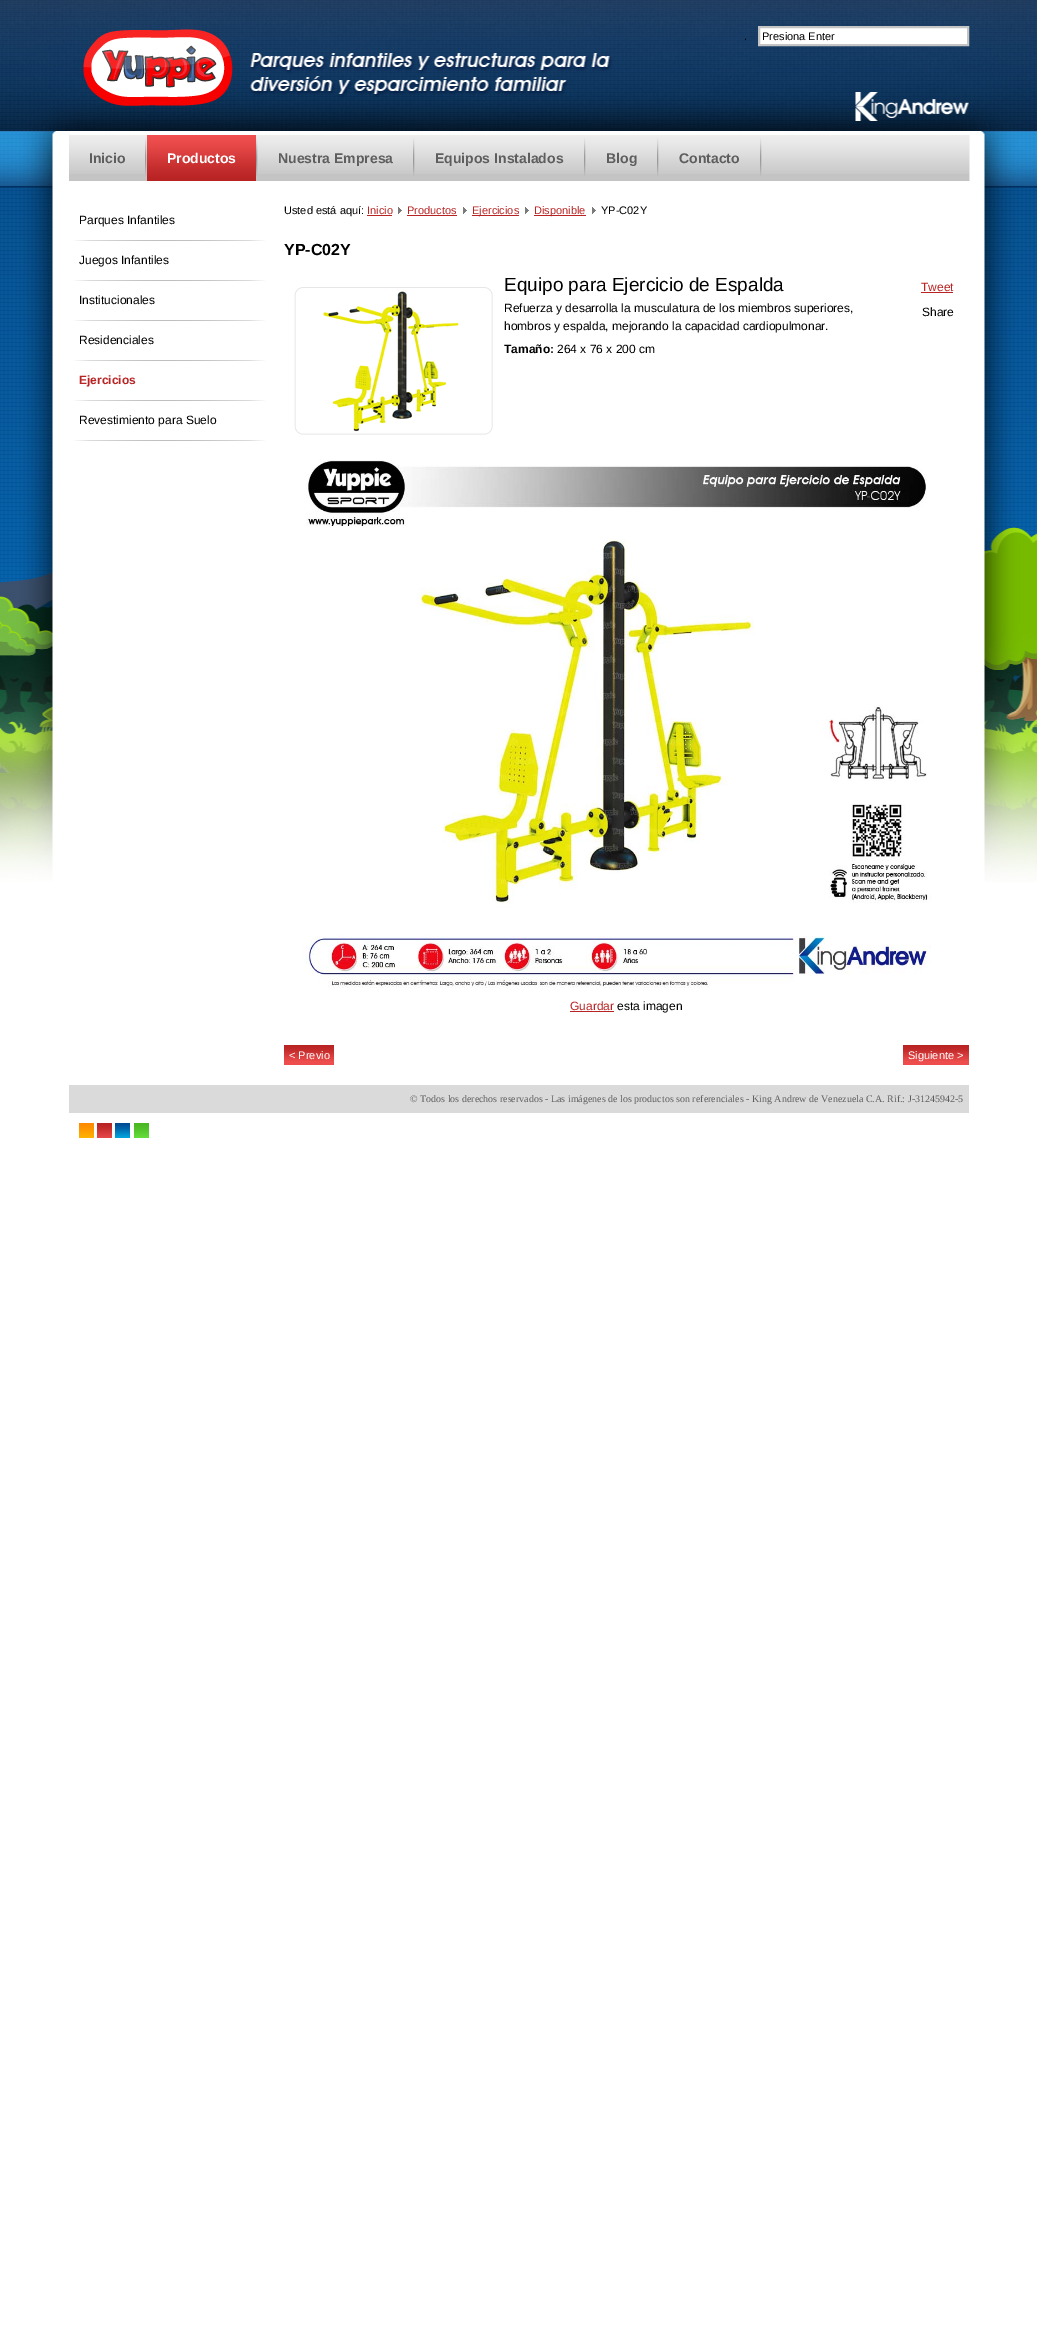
%!PS-Adobe-3.0
%%BoundingBox: 0 0 1037 2343
%%LanguageLevel: 3
%%Pages: 1
%%EndComments
%%BeginProlog
/setink { 3 { 255 div 3 1 roll } repeat setrgbcolor } def
/usefont { [ exch dup neg 0 0 3 -1 roll 0 0 ] selectfont } def
/drawtext { setink usefont moveto show } def
/fillbox { setink rectfill } def
/drawimage { 5 dict begin { /h /w /y /x /name } { exch def } forall
  gsave x y translate w h scale
  w h 8 [w 0 0 h 0 0] name (r) file false 3 colorimage grestore end } def
%%EndProlog
%%BeginSetup
<< /PageSize [1037 2343] >> setpagedevice
%%EndSetup
%%Page: 1 1
0 2343 translate 1 -1 scale
4 setmiterlimit
0 0 1037 2343 255 255 255 fillbox
(assets/img1.rgb) 0 0 1037 882 drawimage
(assets/img2.rgb) 83 29 150 77 drawimage
(.) 744 40 /LiberationSans-Regular 11 0 0 0 drawtext
255 255 255 setink
759 27 moveto 968 27 lineto 968 45 lineto 759 45 lineto closepath gsave fill grestore
196 196 196 setink
2 setlinewidth
stroke
(Presiona Enter) 762 40 /LiberationSans-Regular 11 0 0 0 drawtext
69 174 900 7 196 196 196 fillbox
(assets/img3.rgb) 69 135 900 39 drawimage
(assets/img4.rgb) 145 138 2 38 drawimage
(Inicio) 89 163 /LiberationSans-Bold 14 94 94 94 drawtext
(assets/img4.rgb) 256 138 2 38 drawimage
(assets/img5.rgb) 147 135 109 46 drawimage
(Productos) 167 163 /LiberationSans-Bold 14 255 255 255 drawtext
(assets/img4.rgb) 413 138 2 38 drawimage
(Nuestra Empresa) 278 163 /LiberationSans-Bold 14 94 94 94 drawtext
(assets/img4.rgb) 584 138 2 38 drawimage
(Equipos Instalados) 435 163 /LiberationSans-Bold 14 94 94 94 drawtext
(assets/img4.rgb) 657 138 2 38 drawimage
(Blog) 606 163 /LiberationSans-Bold 14 94 94 94 drawtext
(assets/img4.rgb) 760 138 2 38 drawimage
(Contacto) 679 163 /LiberationSans-Bold 14 94 94 94 drawtext
(assets/img6.rgb) 74 240 191 1 drawimage
(Parques Infantiles) 79 224 /LiberationSans-Regular 12 0 0 0 drawtext
(assets/img6.rgb) 74 280 191 1 drawimage
(Juegos Infantiles) 79 264 /LiberationSans-Regular 12 0 0 0 drawtext
(assets/img6.rgb) 74 320 191 1 drawimage
(Institucionales) 79 304 /LiberationSans-Regular 12 0 0 0 drawtext
(assets/img6.rgb) 74 360 191 1 drawimage
(Residenciales) 79 344 /LiberationSans-Regular 12 0 0 0 drawtext
(assets/img6.rgb) 74 400 191 1 drawimage
(Ejercicios) 79 384 /LiberationSans-Bold 12 184 35 35 drawtext
(assets/img6.rgb) 74 440 191 1 drawimage
(Revestimiento para Suelo) 79 424 /LiberationSans-Regular 12 0 0 0 drawtext
(Usted está aquí:) 284 214 /LiberationSans-Regular 11 0 0 0 drawtext
(Inicio) 367 214 /LiberationSans-Regular 11 184 35 35 drawtext
367 215 25 1 184 35 35 fillbox
(assets/img7.rgb) 398 207 4 7 drawimage
(Productos) 407 214 /LiberationSans-Regular 11 184 35 35 drawtext
407 215 50 1 184 35 35 fillbox
(assets/img7.rgb) 463 207 4 7 drawimage
472 215 47 1 184 35 35 fillbox
(Ejercicios) 472 214 /LiberationSans-Regular 11 184 35 35 drawtext
(assets/img7.rgb) 525 207 4 7 drawimage
534 215 52 1 184 35 35 fillbox
(Disponible) 534 214 /LiberationSans-Regular 11 184 35 35 drawtext
(assets/img7.rgb) 592 207 4 7 drawimage
(YP-C02Y) 601 214 /LiberationSans-Regular 11 0 0 0 drawtext
(YP-C02Y) 284 255 /LiberationSans-Bold 16 0 0 0 drawtext
(assets/img8.rgb) 294 287 199 148 drawimage
(Equipo para Ejercicio de Espalda) 504 291 /LiberationSans-Regular 19 0 0 0 drawtext
(Tweet) 921 291 /LiberationSans-Regular 12 184 35 35 drawtext
921 292 32 1 184 35 35 fillbox
(Share) 922 316 /LiberationSans-Regular 12 0 0 0 drawtext
(Refuerza y desarrolla la musculatura de los miembros superiores,) 504 312 /LiberationSans-Regular 12 0 0 0 drawtext
(hombros y espalda, mejorando la capacidad cardiopulmonar.) 504 330 /LiberationSans-Regular 12 0 0 0 drawtext
(Tamaño:) 504 353 /LiberationSans-Bold 12 0 0 0 drawtext
(264 x 76 x 200 cm) 557 353 /LiberationSans-Regular 12 0 0 0 drawtext
(assets/img9.rgb) 302 460 629 528 drawimage
(Guardar) 570 1010 /LiberationSans-Regular 12 184 35 35 drawtext
570 1011 44 1 184 35 35 fillbox
(esta imagen) 617 1010 /LiberationSans-Regular 12 0 0 0 drawtext
284 1061 50 4 237 77 77 fillbox
(assets/img10.rgb) 284 1045 50 16 drawimage
(< Previo) 289 1059 /LiberationSans-Regular 11 255 255 255 drawtext
903 1061 66 4 237 77 77 fillbox
(assets/img11.rgb) 903 1045 66 16 drawimage
(Siguiente >) 908 1059 /LiberationSans-Regular 11 255 255 255 drawtext
69 1085 900 28 218 218 218 fillbox
(© Todos los derechos reservados - Las imágenes de los productos son referenciales - King Andrew de Venezuela C.A. Rif.: J-31245942-5) 410 1102 /LiberationSerif-Regular 10 94 94 94 drawtext
(assets/img12.rgb) 79 1123 15 15 drawimage
(assets/img13.rgb) 97 1123 15 15 drawimage
(assets/img14.rgb) 115 1123 15 15 drawimage
(assets/img15.rgb) 134 1123 15 15 drawimage
showpage
%%EOF
